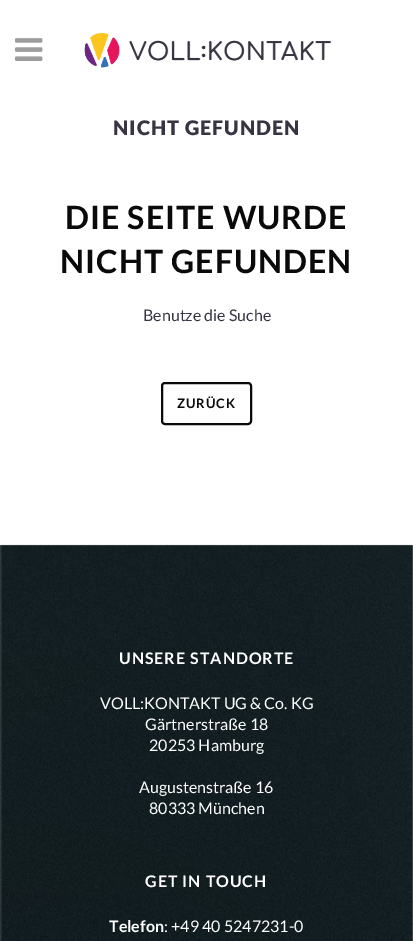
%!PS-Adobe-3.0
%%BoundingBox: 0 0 413 941
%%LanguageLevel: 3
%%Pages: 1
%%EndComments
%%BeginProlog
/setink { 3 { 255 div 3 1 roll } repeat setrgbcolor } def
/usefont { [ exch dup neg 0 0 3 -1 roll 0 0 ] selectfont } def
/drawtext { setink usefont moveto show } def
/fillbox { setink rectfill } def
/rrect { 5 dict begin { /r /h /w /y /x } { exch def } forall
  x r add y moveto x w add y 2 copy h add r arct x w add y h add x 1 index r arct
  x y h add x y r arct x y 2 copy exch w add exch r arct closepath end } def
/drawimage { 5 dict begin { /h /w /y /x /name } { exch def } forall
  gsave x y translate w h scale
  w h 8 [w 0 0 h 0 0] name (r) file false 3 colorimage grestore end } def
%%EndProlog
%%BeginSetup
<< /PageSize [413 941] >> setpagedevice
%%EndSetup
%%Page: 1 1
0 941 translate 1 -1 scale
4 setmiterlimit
0 0 413 941 255 255 255 fillbox
(assets/img1.rgb) 15 38 28 23 drawimage
(assets/img2.rgb) 84 33 247 35 drawimage
/Lato-Black 20 usefont
56 52 66 setink
113 135 moveto 1 0 (NICHT GEFUNDEN) ashow
/Lato-Bold 32 usefont
10 10 10 setink
65 229 moveto 1 0 (DIE SEITE WURDE) ashow
60 273 moveto 1 0 (NICHT GEFUNDEN) ashow
(Benutze die Suche) 143 321 /Lato-Regular 16 56 52 66 drawtext
10 10 10 setink
2 setlinewidth
162 383 89 41 3 rrect stroke
/Lato-Bold 13 usefont
177 408 moveto 1 0 (ZURÜCK) ashow
(assets/img3.rgb) 0 544 413 397 drawimage
/Lato-Bold 16 usefont
255 255 255 setink
119 664 moveto 1 0 (UNSERE STANDORTE) ashow
(VOLL:KONTAKT UG & Co. KG) 100 709 /Lato-Regular 16 255 255 255 drawtext
(Gärtnerstraße 18) 145 730 /Lato-Regular 16 255 255 255 drawtext
(20253 Hamburg) 149 751 /Lato-Regular 16 255 255 255 drawtext
(Augustenstraße 16) 139 793 /Lato-Regular 16 255 255 255 drawtext
(80333 München) 149 814 /Lato-Regular 16 255 255 255 drawtext
/Lato-Bold 16 usefont
145 887 moveto 1 0 (GET IN TOUCH) ashow
(Telefon) 109 932 /Lato-Bold 16 255 255 255 drawtext
(: +49 40 5247231-0) 164 932 /Lato-Regular 16 255 255 255 drawtext
showpage
%%EOF
